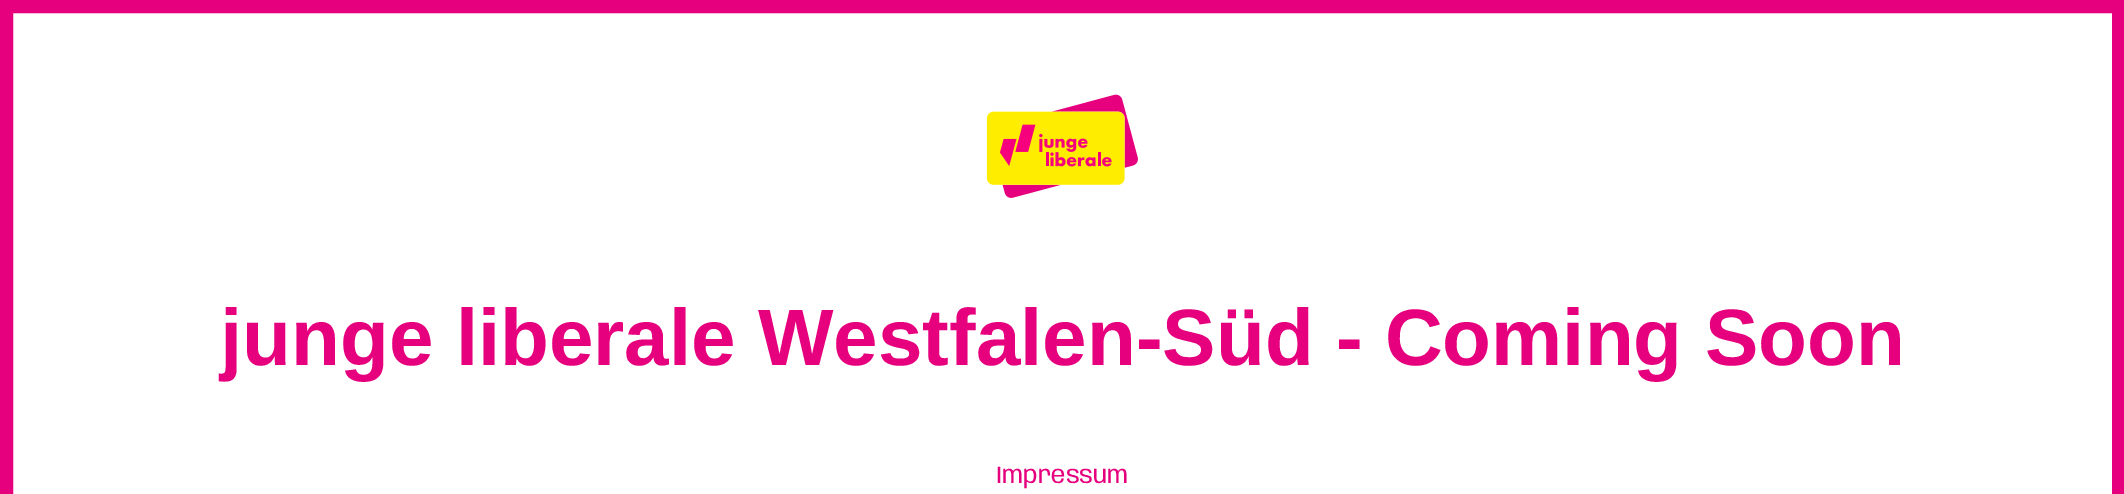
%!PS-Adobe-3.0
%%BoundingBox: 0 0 2124 494
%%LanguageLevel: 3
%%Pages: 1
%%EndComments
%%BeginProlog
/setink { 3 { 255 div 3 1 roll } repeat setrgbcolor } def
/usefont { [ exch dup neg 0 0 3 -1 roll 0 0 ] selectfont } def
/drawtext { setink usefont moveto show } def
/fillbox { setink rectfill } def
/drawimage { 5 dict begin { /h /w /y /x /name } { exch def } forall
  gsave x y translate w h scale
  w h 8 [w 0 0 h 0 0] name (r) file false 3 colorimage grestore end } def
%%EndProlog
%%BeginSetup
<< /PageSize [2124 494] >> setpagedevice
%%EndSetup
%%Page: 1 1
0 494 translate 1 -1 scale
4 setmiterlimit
0 0 2124 494 255 255 255 fillbox
230 0 126 setink
13 setlinewidth
6.5 6.5 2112 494 rectstroke
(assets/img1.rgb) 986 94 152 104 drawimage
(junge liberale Westfalen-Süd - Coming Soon) 220 365 /LiberationSans-Bold 80 230 0 126 drawtext
(Impressum) 996 483 /Anybody-Regular 24 230 0 126 drawtext
showpage
%%EOF
